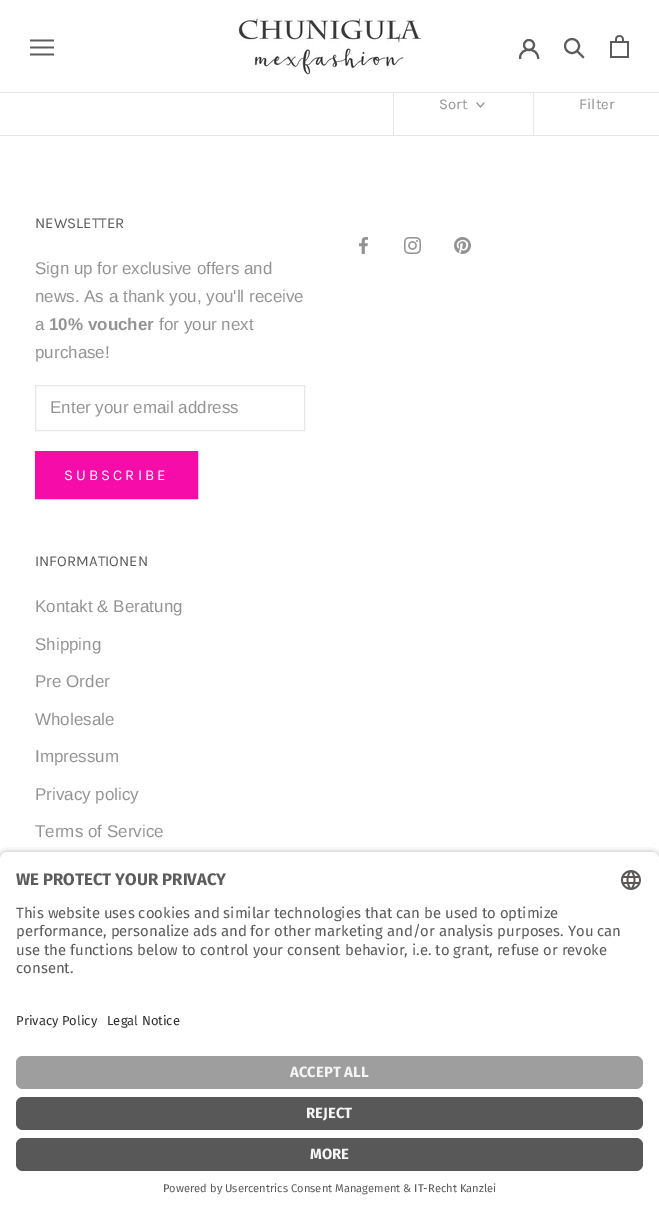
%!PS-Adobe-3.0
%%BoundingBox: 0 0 659 1212
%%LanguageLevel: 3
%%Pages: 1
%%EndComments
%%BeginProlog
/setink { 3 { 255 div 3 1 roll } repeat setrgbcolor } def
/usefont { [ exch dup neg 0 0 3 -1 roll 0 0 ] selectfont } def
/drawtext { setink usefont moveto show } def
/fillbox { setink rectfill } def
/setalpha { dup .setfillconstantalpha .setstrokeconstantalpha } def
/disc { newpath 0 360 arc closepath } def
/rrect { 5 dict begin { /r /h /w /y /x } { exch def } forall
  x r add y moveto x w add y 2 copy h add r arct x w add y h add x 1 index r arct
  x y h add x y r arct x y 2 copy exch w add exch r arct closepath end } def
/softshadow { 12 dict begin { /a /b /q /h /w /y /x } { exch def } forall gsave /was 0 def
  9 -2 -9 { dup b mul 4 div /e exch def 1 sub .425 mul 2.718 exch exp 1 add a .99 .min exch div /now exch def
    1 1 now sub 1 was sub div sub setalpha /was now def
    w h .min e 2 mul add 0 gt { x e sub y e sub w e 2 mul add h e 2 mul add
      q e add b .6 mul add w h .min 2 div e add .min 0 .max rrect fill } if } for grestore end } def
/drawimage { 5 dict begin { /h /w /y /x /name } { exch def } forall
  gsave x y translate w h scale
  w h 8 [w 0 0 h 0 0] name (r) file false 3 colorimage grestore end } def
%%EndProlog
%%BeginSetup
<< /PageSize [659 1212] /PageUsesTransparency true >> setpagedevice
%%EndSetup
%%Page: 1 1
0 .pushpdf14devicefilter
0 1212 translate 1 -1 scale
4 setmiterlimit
0 0 659 1212 255 255 255 fillbox
0 92 659 1 231 231 231 fillbox
(assets/img1.rgb) 30 39 24 17 drawimage
(assets/img2.rgb) 238 18 184 57 drawimage
92 92 92 setink
2 setlinewidth
2 setlinecap
520 58 moveto 520 47 538 47 538 58 curveto stroke
0 setlinecap
529 45 5 disc stroke
2 setlinecap
583 57 moveto 577.5 51.5 lineto stroke
0 setlinecap
572 46 7 disc stroke
(assets/img3.rgb) 610 35 19 23 drawimage
393 93 1 42 231 231 231 fillbox
(Sort) 439 109 /Karla-Regular 15 147 147 147 drawtext
1 setlinewidth
2 setlinecap
484 103 moveto 480.5 107 lineto 477 103 lineto stroke
533 93 1 42 231 231 231 fillbox
(Filter) 579 109 /Karla-Regular 15 147 147 147 drawtext
0 135 659 1 231 231 231 fillbox
(NEWSLETTER) 35 228 /Karla-Regular 15 92 92 92 drawtext
(Sign up for exclusive offers and) 35 274 /Arimo-Regular 17 147 147 147 drawtext
(news. As a thank you, you'll receive) 35 302 /Arimo-Regular 17 147 147 147 drawtext
(a) 35 330 /Arimo-Regular 17 147 147 147 drawtext
(10% voucher) 49 330 /Arimo-Bold 17 147 147 147 drawtext
(for your next) 159 330 /Arimo-Regular 17 147 147 147 drawtext
(purchase!) 35 358 /Arimo-Regular 17 147 147 147 drawtext
231 231 231 setink
0 setlinecap
35.5 385.5 269 45 rectstroke
(Enter your email address) 50 413 /Arimo-Regular 17 147 147 147 drawtext
245 12 169 setink
35.5 451.5 162 47 rectstroke
36 452 161 46 245 12 169 fillbox
/Karla-Regular 15 usefont
255 255 255 setink
64 480 moveto 3 0 (SUBSCRIBE) ashow
(assets/img4.rgb) 359 237 9 17 drawimage
(assets/img5.rgb) 404 237 17 17 drawimage
(assets/img6.rgb) 454 237 17 17 drawimage
(INFORMATIONEN) 35 566 /Karla-Regular 15 92 92 92 drawtext
(Kontakt & Beratung) 35 612 /Arimo-Regular 17 147 147 147 drawtext
(Shipping) 35 650 /Arimo-Regular 17 147 147 147 drawtext
(Pre Order) 35 687 /Arimo-Regular 17 147 147 147 drawtext
(Wholesale) 35 725 /Arimo-Regular 17 147 147 147 drawtext
(Impressum) 35 762 /Arimo-Regular 17 147 147 147 drawtext
(Privacy policy) 35 800 /Arimo-Regular 17 147 147 147 drawtext
(Terms of Service) 35 837 /Arimo-Regular 17 147 147 147 drawtext
0 0 0 setink
0 855 659 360 7 3.5 0.8 softshadow
255 255 255 setink
7 852 moveto 652 852 lineto 656 852 659 855 659 859 curveto 659 998 lineto 0 998 lineto 0 859 lineto 0 855 3 852 7 852 curveto closepath fill
(WE PROTECT YOUR PRIVACY) 16 885 /FiraSans-Bold 16.75 92 92 92 drawtext
(assets/img7.rgb) 621 870 20 20 drawimage
(This website uses cookies and similar technologies that can be used to optimize) 16 918 /FiraSans-Regular 14.9 92 92 92 drawtext
(performance, personalize ads and for other marketing and/or analysis purposes. You can) 16 936 /FiraSans-Regular 14.9 92 92 92 drawtext
(use the functions below to control your consent behavior, i.e. to grant, refuse or revoke) 16 955 /FiraSans-Regular 14.9 92 92 92 drawtext
(consent.) 16 973 /FiraSans-Regular 14.9 92 92 92 drawtext
0 998 659 214 255 255 255 fillbox
(Privacy Policy) 16 1025 /FiraSans-Regular 13 48 48 48 drawtext
(Legal Notice) 107 1025 /FiraSans-Regular 13 48 48 48 drawtext
158 158 158 setink
16 1056 627 33 7 rrect fill
(ACCEPT ALL) 290 1077 /FiraSans-Bold 14.9 245 245 245 drawtext
88 88 88 setink
16 1097 627 33 7 rrect fill
(REJECT) 306 1118 /FiraSans-Bold 14.9 245 245 245 drawtext
88 88 88 setink
16 1138 627 33 7 rrect fill
(MORE) 310 1159 /FiraSans-Bold 14.9 245 245 245 drawtext
(Powered by Usercentrics Consent Management & IT-Recht Kanzlei) 163 1192 /FiraSans-Regular 11.15 92 92 92 drawtext
.poppdf14devicefilter showpage
%%EOF
